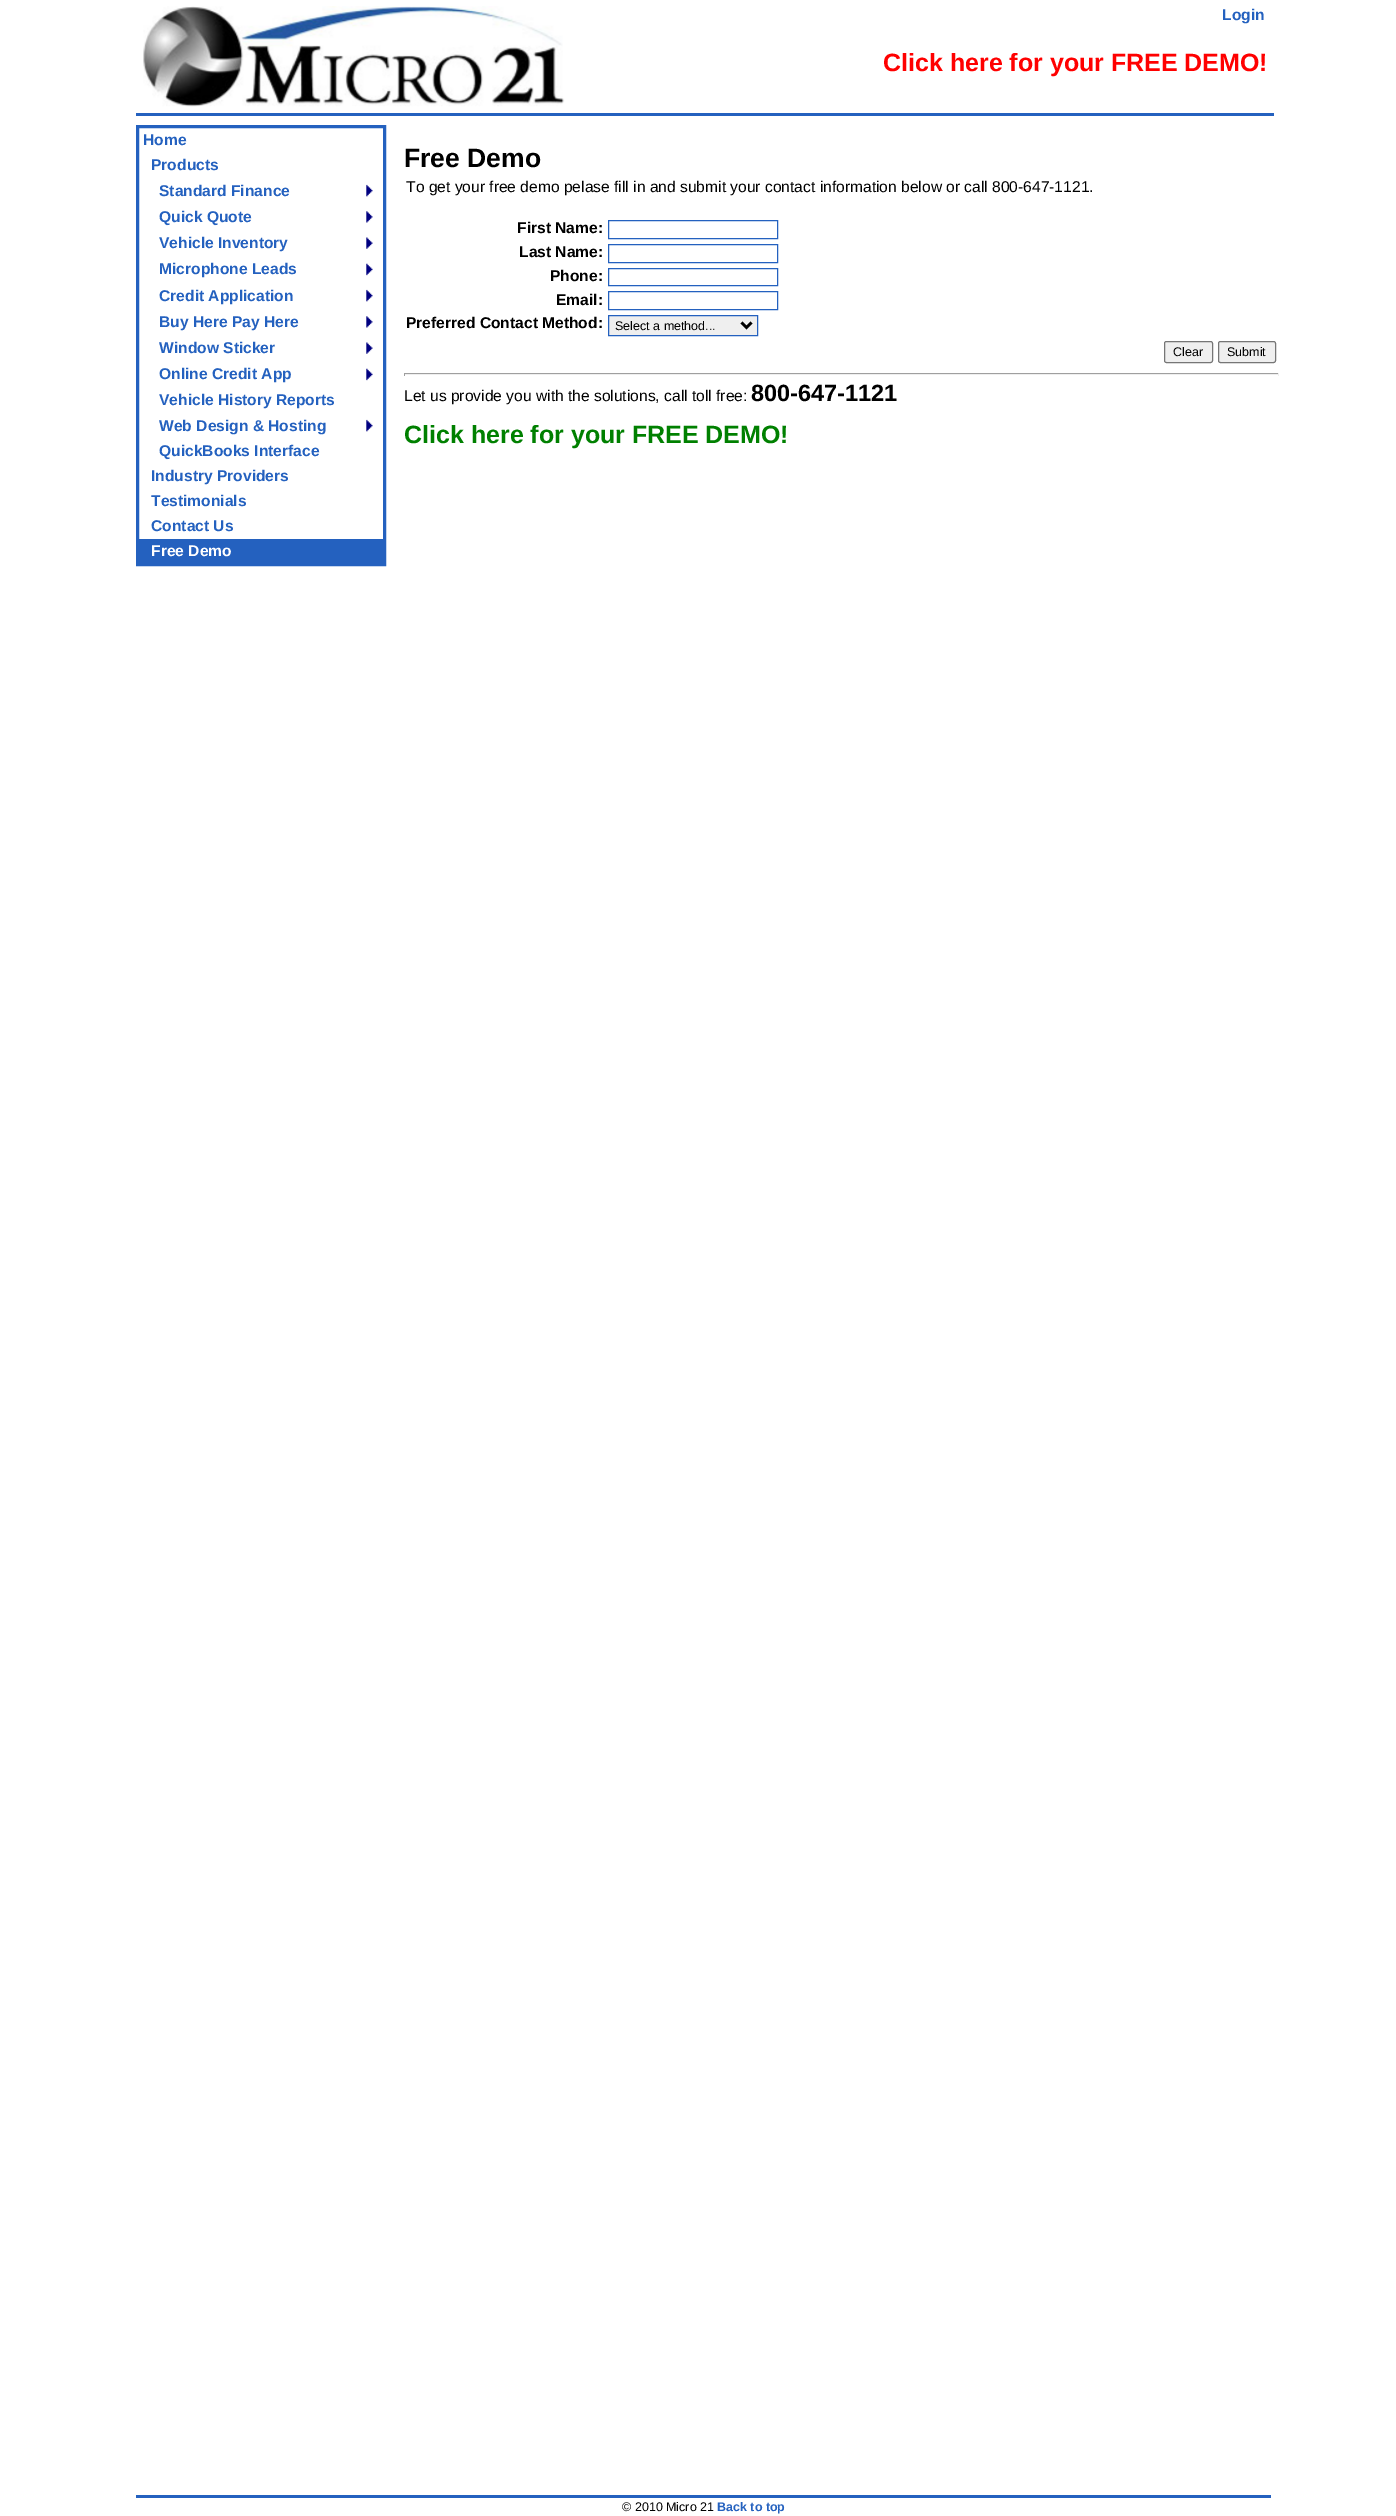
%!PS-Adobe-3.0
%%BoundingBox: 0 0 1396 2516
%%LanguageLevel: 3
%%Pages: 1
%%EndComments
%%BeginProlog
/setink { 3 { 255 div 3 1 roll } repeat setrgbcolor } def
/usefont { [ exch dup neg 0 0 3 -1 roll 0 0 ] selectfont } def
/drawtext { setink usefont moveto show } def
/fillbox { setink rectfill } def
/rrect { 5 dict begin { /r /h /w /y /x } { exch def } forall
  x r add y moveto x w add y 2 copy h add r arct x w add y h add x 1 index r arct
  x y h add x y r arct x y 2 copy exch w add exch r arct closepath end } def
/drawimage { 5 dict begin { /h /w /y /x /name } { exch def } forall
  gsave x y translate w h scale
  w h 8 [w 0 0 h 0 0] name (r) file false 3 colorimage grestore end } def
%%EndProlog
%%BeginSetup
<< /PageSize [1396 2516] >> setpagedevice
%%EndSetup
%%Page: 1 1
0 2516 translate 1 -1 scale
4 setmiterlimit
0 0 1396 2516 255 255 255 fillbox
136 113 1138 3 36 97 191 fillbox
(assets/img1.rgb) 143 6 422 101 drawimage
(Login) 1222 20 /LiberationSans-Bold 15.6 36 97 191 drawtext
(Click here for your FREE DEMO!) 883 71 /LiberationSans-Bold 25 255 0 0 drawtext
36 97 191 setink
3 setlinewidth
137.5 126.5 247 438 rectstroke
(Home) 143 145 /LiberationSans-Bold 15.6 36 97 191 drawtext
(Products) 151 170 /LiberationSans-Bold 15.6 36 97 191 drawtext
(Standard Finance) 159 196 /LiberationSans-Bold 15.6 36 97 191 drawtext
(assets/img2.rgb) 366 184 7 13 drawimage
(Quick Quote) 159 222 /LiberationSans-Bold 15.6 36 97 191 drawtext
(assets/img3.rgb) 366 211 7 12 drawimage
(Vehicle Inventory) 159 248 /LiberationSans-Bold 15.6 36 97 191 drawtext
(assets/img4.rgb) 366 237 7 12 drawimage
(Microphone Leads) 159 274 /LiberationSans-Bold 15.6 36 97 191 drawtext
(assets/img5.rgb) 366 263 7 13 drawimage
(Credit Application) 159 301 /LiberationSans-Bold 15.6 36 97 191 drawtext
(assets/img6.rgb) 366 289 7 13 drawimage
(Buy Here Pay Here) 159 327 /LiberationSans-Bold 15.6 36 97 191 drawtext
(assets/img3.rgb) 366 316 7 12 drawimage
(Window Sticker) 159 353 /LiberationSans-Bold 15.6 36 97 191 drawtext
(assets/img4.rgb) 366 342 7 12 drawimage
(Online Credit App) 159 379 /LiberationSans-Bold 15.6 36 97 191 drawtext
(assets/img5.rgb) 366 368 7 13 drawimage
(Vehicle History Reports) 159 405 /LiberationSans-Bold 15.6 36 97 191 drawtext
(Web Design & Hosting) 159 431 /LiberationSans-Bold 15.6 36 97 191 drawtext
(assets/img2.rgb) 366 419 7 13 drawimage
(QuickBooks Interface) 159 456 /LiberationSans-Bold 15.6 36 97 191 drawtext
(Industry Providers) 151 481 /LiberationSans-Bold 15.6 36 97 191 drawtext
(Testimonials) 151 506 /LiberationSans-Bold 15.6 36 97 191 drawtext
(Contact Us) 151 531 /LiberationSans-Bold 15.6 36 97 191 drawtext
139 539 244 24 36 97 191 fillbox
(Free Demo) 151 556 /LiberationSans-Bold 15.6 255 255 255 drawtext
(Free Demo) 404 167 /LiberationSans-Bold 26.5 0 0 0 drawtext
(To get your free demo pelase fill in and submit your contact information below or call 800-647-1121.) 406 192 /LiberationSans-Regular 15.6 0 0 0 drawtext
(First Name:) 517 233 /LiberationSans-Bold 15.6 0 0 0 drawtext
36 97 191 setink
1 setlinewidth
608.5 220.5 169 18 rectstroke
(Last Name:) 519 257 /LiberationSans-Bold 15.6 0 0 0 drawtext
36 97 191 setink
608.5 244.5 169 18 rectstroke
(Phone:) 550 281 /LiberationSans-Bold 15.6 0 0 0 drawtext
36 97 191 setink
608.5 268.5 169 17 rectstroke
(Email:) 556 305 /LiberationSans-Bold 15.6 0 0 0 drawtext
36 97 191 setink
608.5 291.5 169 18 rectstroke
(Preferred Contact Method:) 406 328 /LiberationSans-Bold 15.6 0 0 0 drawtext
239 239 239 setink
608.5 315.5 moveto 757.5 315.5 lineto 757.5 335.5 lineto 608.5 335.5 lineto closepath gsave fill grestore
36 97 191 setink
stroke
0 0 0 setink
2.5 setlinewidth
741.5 322.5 moveto 746.5 327.5 lineto 751.5 322.5 lineto stroke
(Select a method...) 615 330 /LiberationSans-Regular 12.5 0 0 0 drawtext
239 239 239 setink
1164.5 341.5 48 21 2 rrect gsave fill grestore
118 118 118 setink
1 setlinewidth
stroke
(Clear) 1173 356 /LiberationSans-Regular 12.5 0 0 0 drawtext
239 239 239 setink
1218.5 341.5 57 21 2 rrect gsave fill grestore
118 118 118 setink
stroke
(Submit) 1227 356 /LiberationSans-Regular 12.5 0 0 0 drawtext
404 373 875 1 159 159 159 fillbox
1278 373 1 3 238 238 238 fillbox
404 374 875 1 238 238 238 fillbox
404 373 1 3 159 159 159 fillbox
(Let us provide you with the solutions, call toll free:) 404 401 /LiberationSans-Regular 15.6 0 0 0 drawtext
(800-647-1121) 751 401 /LiberationSans-Bold 23.5 0 0 0 drawtext
(Click here for your FREE DEMO!) 404 443 /LiberationSans-Bold 25 0 128 0 drawtext
136 2495 1135 3 36 97 191 fillbox
(© 2010 Micro 21) 622 2511 /LiberationSans-Regular 12.5 0 0 0 drawtext
(Back to top) 717 2511 /LiberationSans-Bold 12.5 36 97 191 drawtext
showpage
%%EOF
